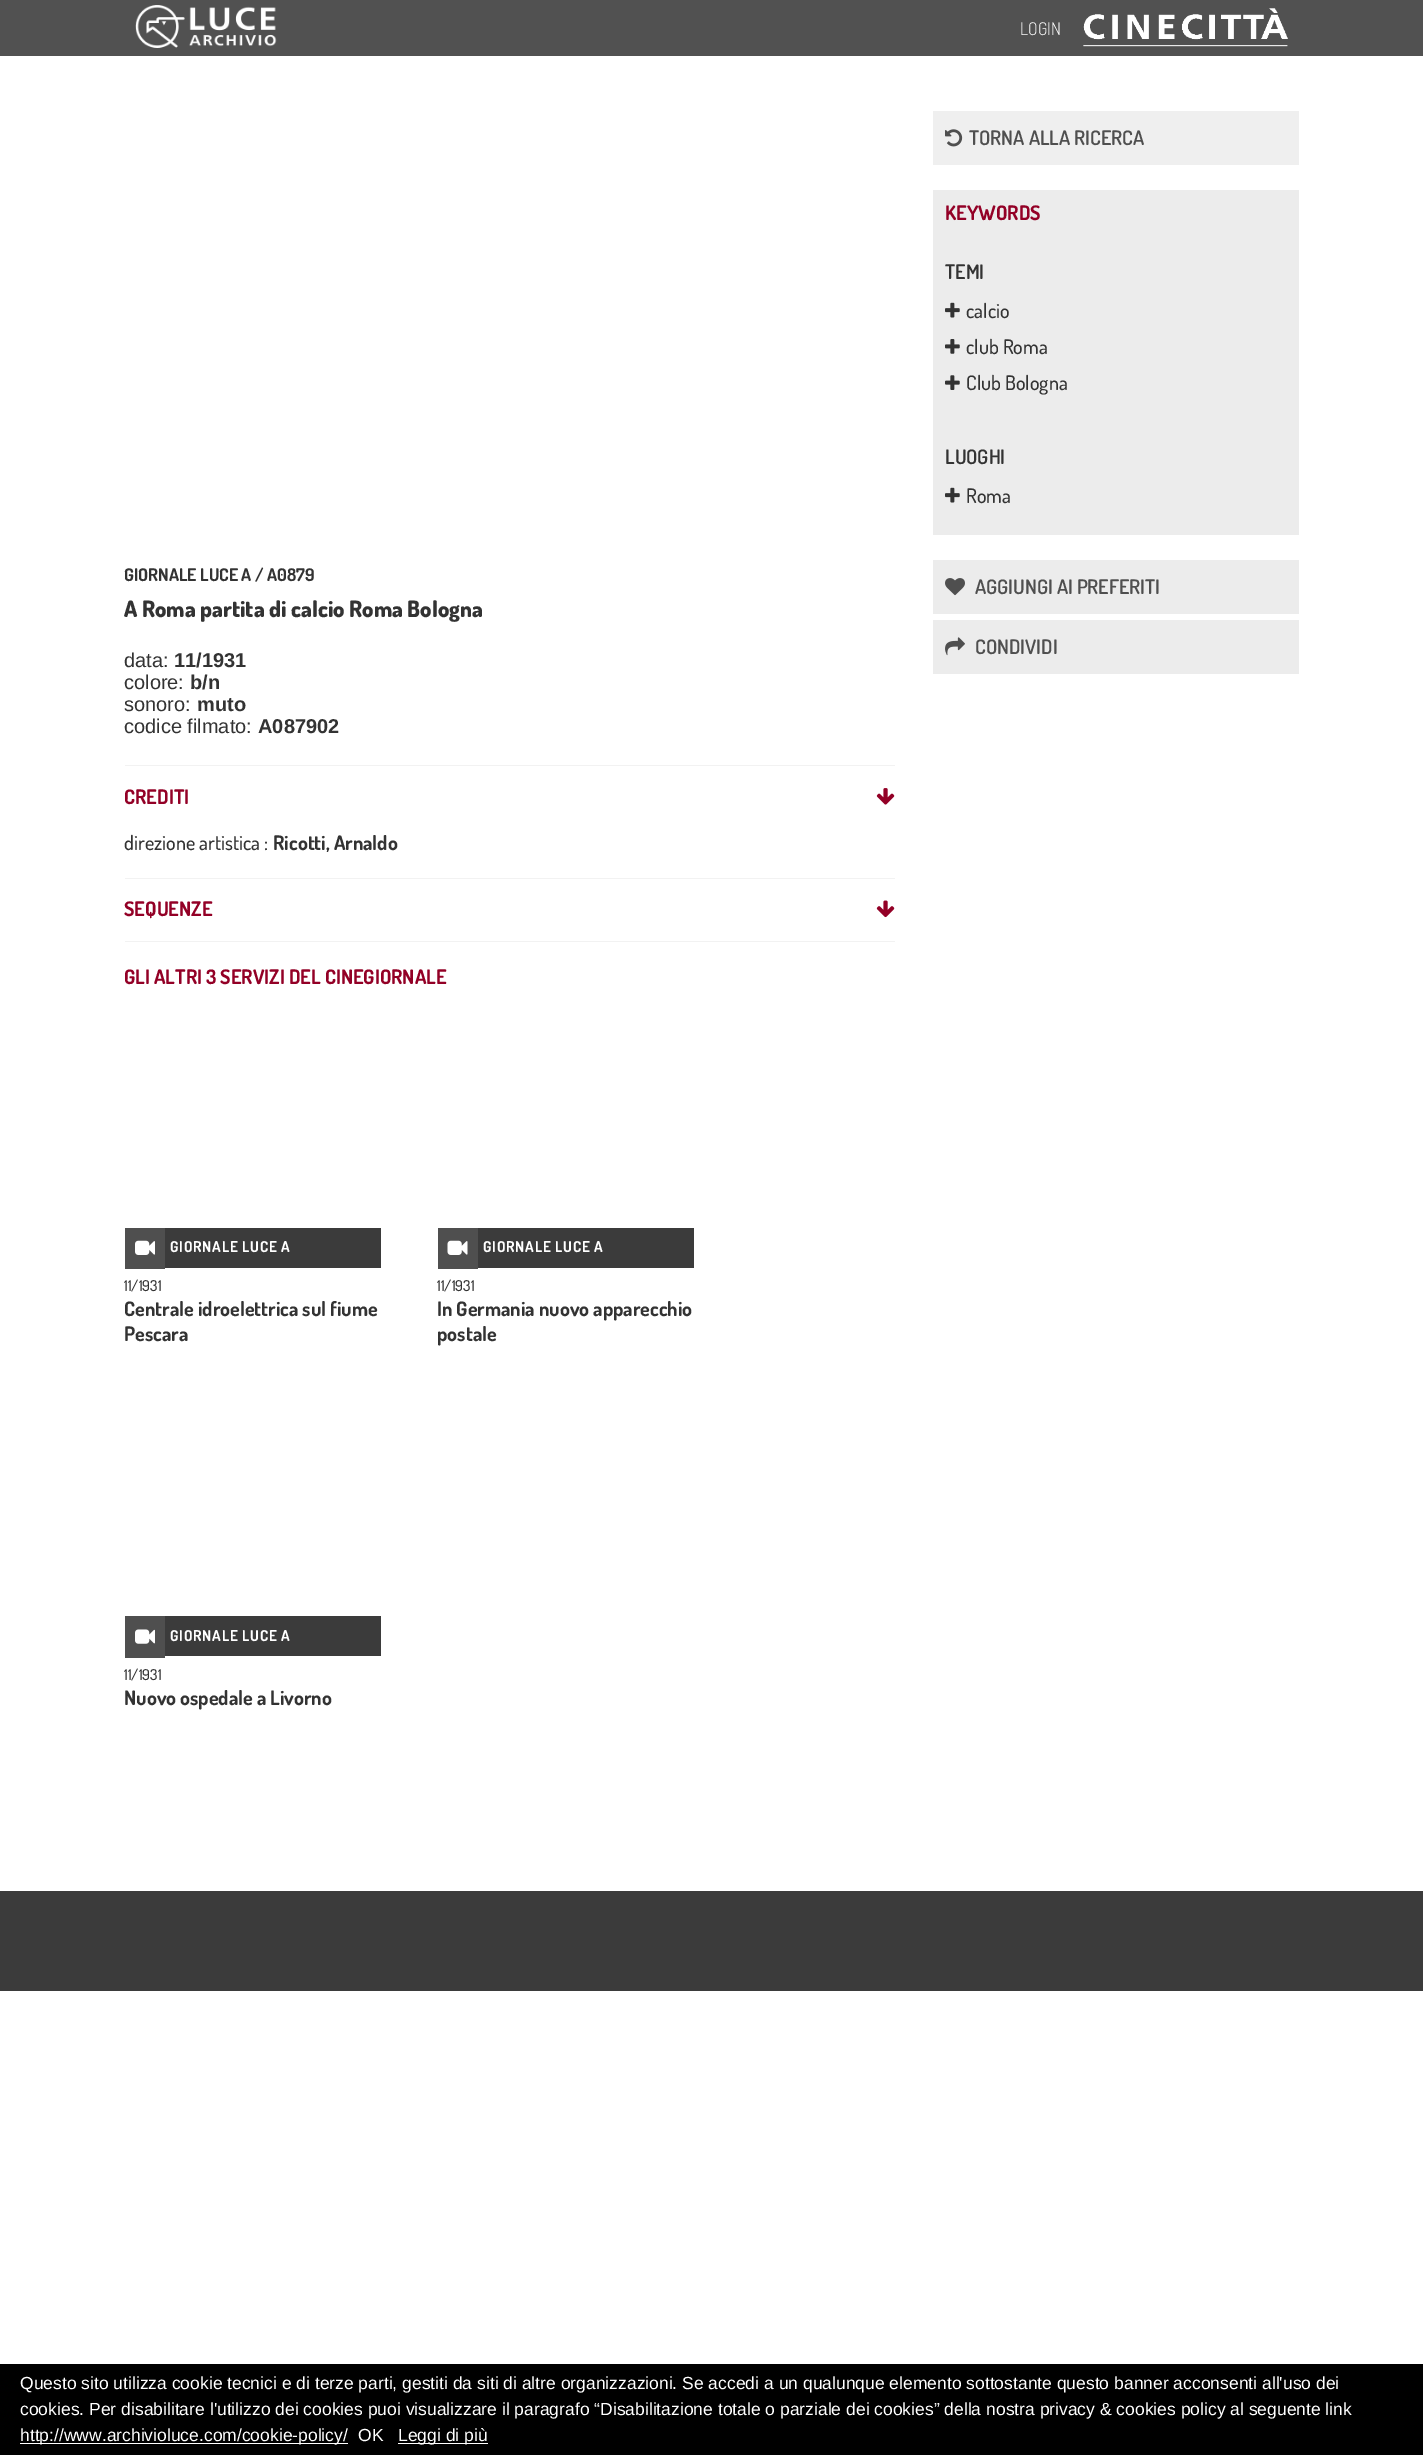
%!PS-Adobe-3.0
%%BoundingBox: 0 0 1423 2455
%%LanguageLevel: 3
%%Pages: 1
%%EndComments
%%BeginProlog
/setink { 3 { 255 div 3 1 roll } repeat setrgbcolor } def
/usefont { [ exch dup neg 0 0 3 -1 roll 0 0 ] selectfont } def
/drawtext { setink usefont moveto show } def
/fillbox { setink rectfill } def
/drawimage { 5 dict begin { /h /w /y /x /name } { exch def } forall
  gsave x y translate w h scale
  w h 8 [w 0 0 h 0 0] name (r) file false 3 colorimage grestore end } def
%%EndProlog
%%BeginSetup
<< /PageSize [1423 2455] >> setpagedevice
%%EndSetup
%%Page: 1 1
0 2455 translate 1 -1 scale
4 setmiterlimit
0 0 1423 2455 255 255 255 fillbox
0 0 1423 56 81 81 81 fillbox
(assets/img1.rgb) 135 5 142 43 drawimage
(LOGIN) 1020 35 /Dosis-Light 17.5 255 255 255 drawtext
(assets/img2.rgb) 1083 8 205 39 drawimage
933 111 366 54 239 239 239 fillbox
(assets/img3.rgb) 945 129 18 18 drawimage
(TORNA ALLA RICERCA) 969 145 /Dosis-SemiBold 20 79 79 79 drawtext
933 190 366 345 236 236 236 fillbox
(KEYWORDS) 945 220 /Dosis-Bold 20 147 0 38 drawtext
(TEMI) 945 279 /Dosis-SemiBold 20 51 51 51 drawtext
(assets/img4.rgb) 945 302 15 16 drawimage
(calcio) 966 318 /Dosis-Medium 20 51 51 51 drawtext
(assets/img5.rgb) 945 339 15 15 drawimage
(club Roma) 966 354 /Dosis-Medium 20 51 51 51 drawtext
(assets/img6.rgb) 945 375 15 15 drawimage
(Club Bologna) 966 390 /Dosis-Medium 20 51 51 51 drawtext
(LUOGHI) 945 464 /Dosis-SemiBold 20 51 51 51 drawtext
(assets/img4.rgb) 945 487 15 16 drawimage
(Roma) 966 503 /Dosis-Medium 20 51 51 51 drawtext
933 560 366 54 236 236 236 fillbox
(assets/img7.rgb) 945 578 20 18 drawimage
(AGGIUNGI AI PREFERITI) 975 594 /Dosis-SemiBold 20 79 79 79 drawtext
933 620 366 54 236 236 236 fillbox
(assets/img8.rgb) 945 637 20 19 drawimage
(CONDIVIDI) 975 654 /Dosis-SemiBold 20 79 79 79 drawtext
(GIORNALE LUCE A / A0879) 124 581 /Dosis-Bold 17.5 51 51 51 drawtext
(A Roma partita di calcio Roma Bologna) 124 617 /Dosis-ExtraBold 22.5 51 51 51 drawtext
(data:) 124 667 /LiberationSans-Regular 20 51 51 51 drawtext
(11/1931) 174 667 /LiberationSans-Bold 20 51 51 51 drawtext
(colore:) 124 689 /LiberationSans-Regular 20 51 51 51 drawtext
(b/n) 190 689 /LiberationSans-Bold 20 51 51 51 drawtext
(sonoro:) 124 711 /LiberationSans-Regular 20 51 51 51 drawtext
(muto) 197 711 /LiberationSans-Bold 20 51 51 51 drawtext
(codice filmato:) 124 733 /LiberationSans-Regular 20 51 51 51 drawtext
(A087902) 258 733 /LiberationSans-Bold 20 51 51 51 drawtext
125 765 770 1 242 242 242 fillbox
125 878 770 1 242 242 242 fillbox
(CREDITI) 124 804 /Dosis-Bold 20 147 0 38 drawtext
(assets/img9.rgb) 876 788 19 17 drawimage
(direzione artistica :) 124 850 /Dosis-Medium 20 51 51 51 drawtext
(Ricotti, Arnaldo) 273 850 /Dosis-Bold 20 51 51 51 drawtext
125 941 770 1 242 242 242 fillbox
(SEQUENZE) 124 916 /Dosis-Bold 20 147 0 38 drawtext
(assets/img10.rgb) 876 900 19 18 drawimage
(GLI ALTRI 3 SERVIZI DEL CINEGIORNALE) 124 984 /Dosis-Bold 20 147 0 38 drawtext
125 1228 40 41 79 79 79 fillbox
(assets/img11.rgb) 135 1240 20 15 drawimage
165 1228 216 40 59 59 59 fillbox
/Dosis-Bold 15 usefont
255 255 255 setink
170 1252 moveto 0.75 0 (GIORNALE LUCE A) ashow
(11/1931) 124 1291 /Dosis-Medium 15 51 51 51 drawtext
(Centrale idroelettrica sul fiume) 124 1316 /Dosis-Bold 20 51 51 51 drawtext
(Pescara) 124 1341 /Dosis-Bold 20 51 51 51 drawtext
438 1228 40 41 79 79 79 fillbox
(assets/img12.rgb) 447 1240 21 15 drawimage
478 1228 216 40 59 59 59 fillbox
/Dosis-Bold 15 usefont
255 255 255 setink
483 1252 moveto 0.75 0 (GIORNALE LUCE A) ashow
(11/1931) 437 1291 /Dosis-Medium 15 51 51 51 drawtext
(In Germania nuovo apparecchio) 437 1316 /Dosis-Bold 20 51 51 51 drawtext
gsave
438 1296 256 50 rectclip
(postale) 437 1341 /Dosis-Bold 20 51 51 51 drawtext
grestore
125 1616 40 42 79 79 79 fillbox
(assets/img13.rgb) 135 1629 20 15 drawimage
165 1616 216 40 59 59 59 fillbox
/Dosis-Bold 15 usefont
255 255 255 setink
170 1641 moveto 0.75 0 (GIORNALE LUCE A) ashow
(11/1931) 124 1680 /Dosis-Medium 15 51 51 51 drawtext
(Nuovo ospedale a Livorno) 124 1705 /Dosis-Bold 20 51 51 51 drawtext
0 1891 1423 100 59 59 59 fillbox
0 2364 1423 91 0 0 0 fillbox
(Questo sito utilizza cookie tecnici e di terze parti, gestiti da siti di altre organizzazioni. Se accedi a un qualunque elemento sottostante questo banner acconsenti all'uso dei) 20 2389 /LiberationSans-Regular 17.5 255 255 255 drawtext
(cookies. Per disabilitare l'utilizzo dei cookies puoi visualizzare il paragrafo “Disabilitazione totale o parziale dei cookies” della nostra privacy & cookies policy al seguente link) 20 2415 /LiberationSans-Regular 17.5 255 255 255 drawtext
20 2443 328 1 255 255 255 fillbox
(http://www.archivioluce.com/cookie-policy/) 20 2441 /LiberationSans-Regular 17.5 255 255 255 drawtext
(OK) 358 2441 /LiberationSans-Regular 17.5 255 255 255 drawtext
398 2443 90 1 255 255 255 fillbox
(Leggi di più) 398 2441 /LiberationSans-Regular 17.5 255 255 255 drawtext
showpage
%%EOF
